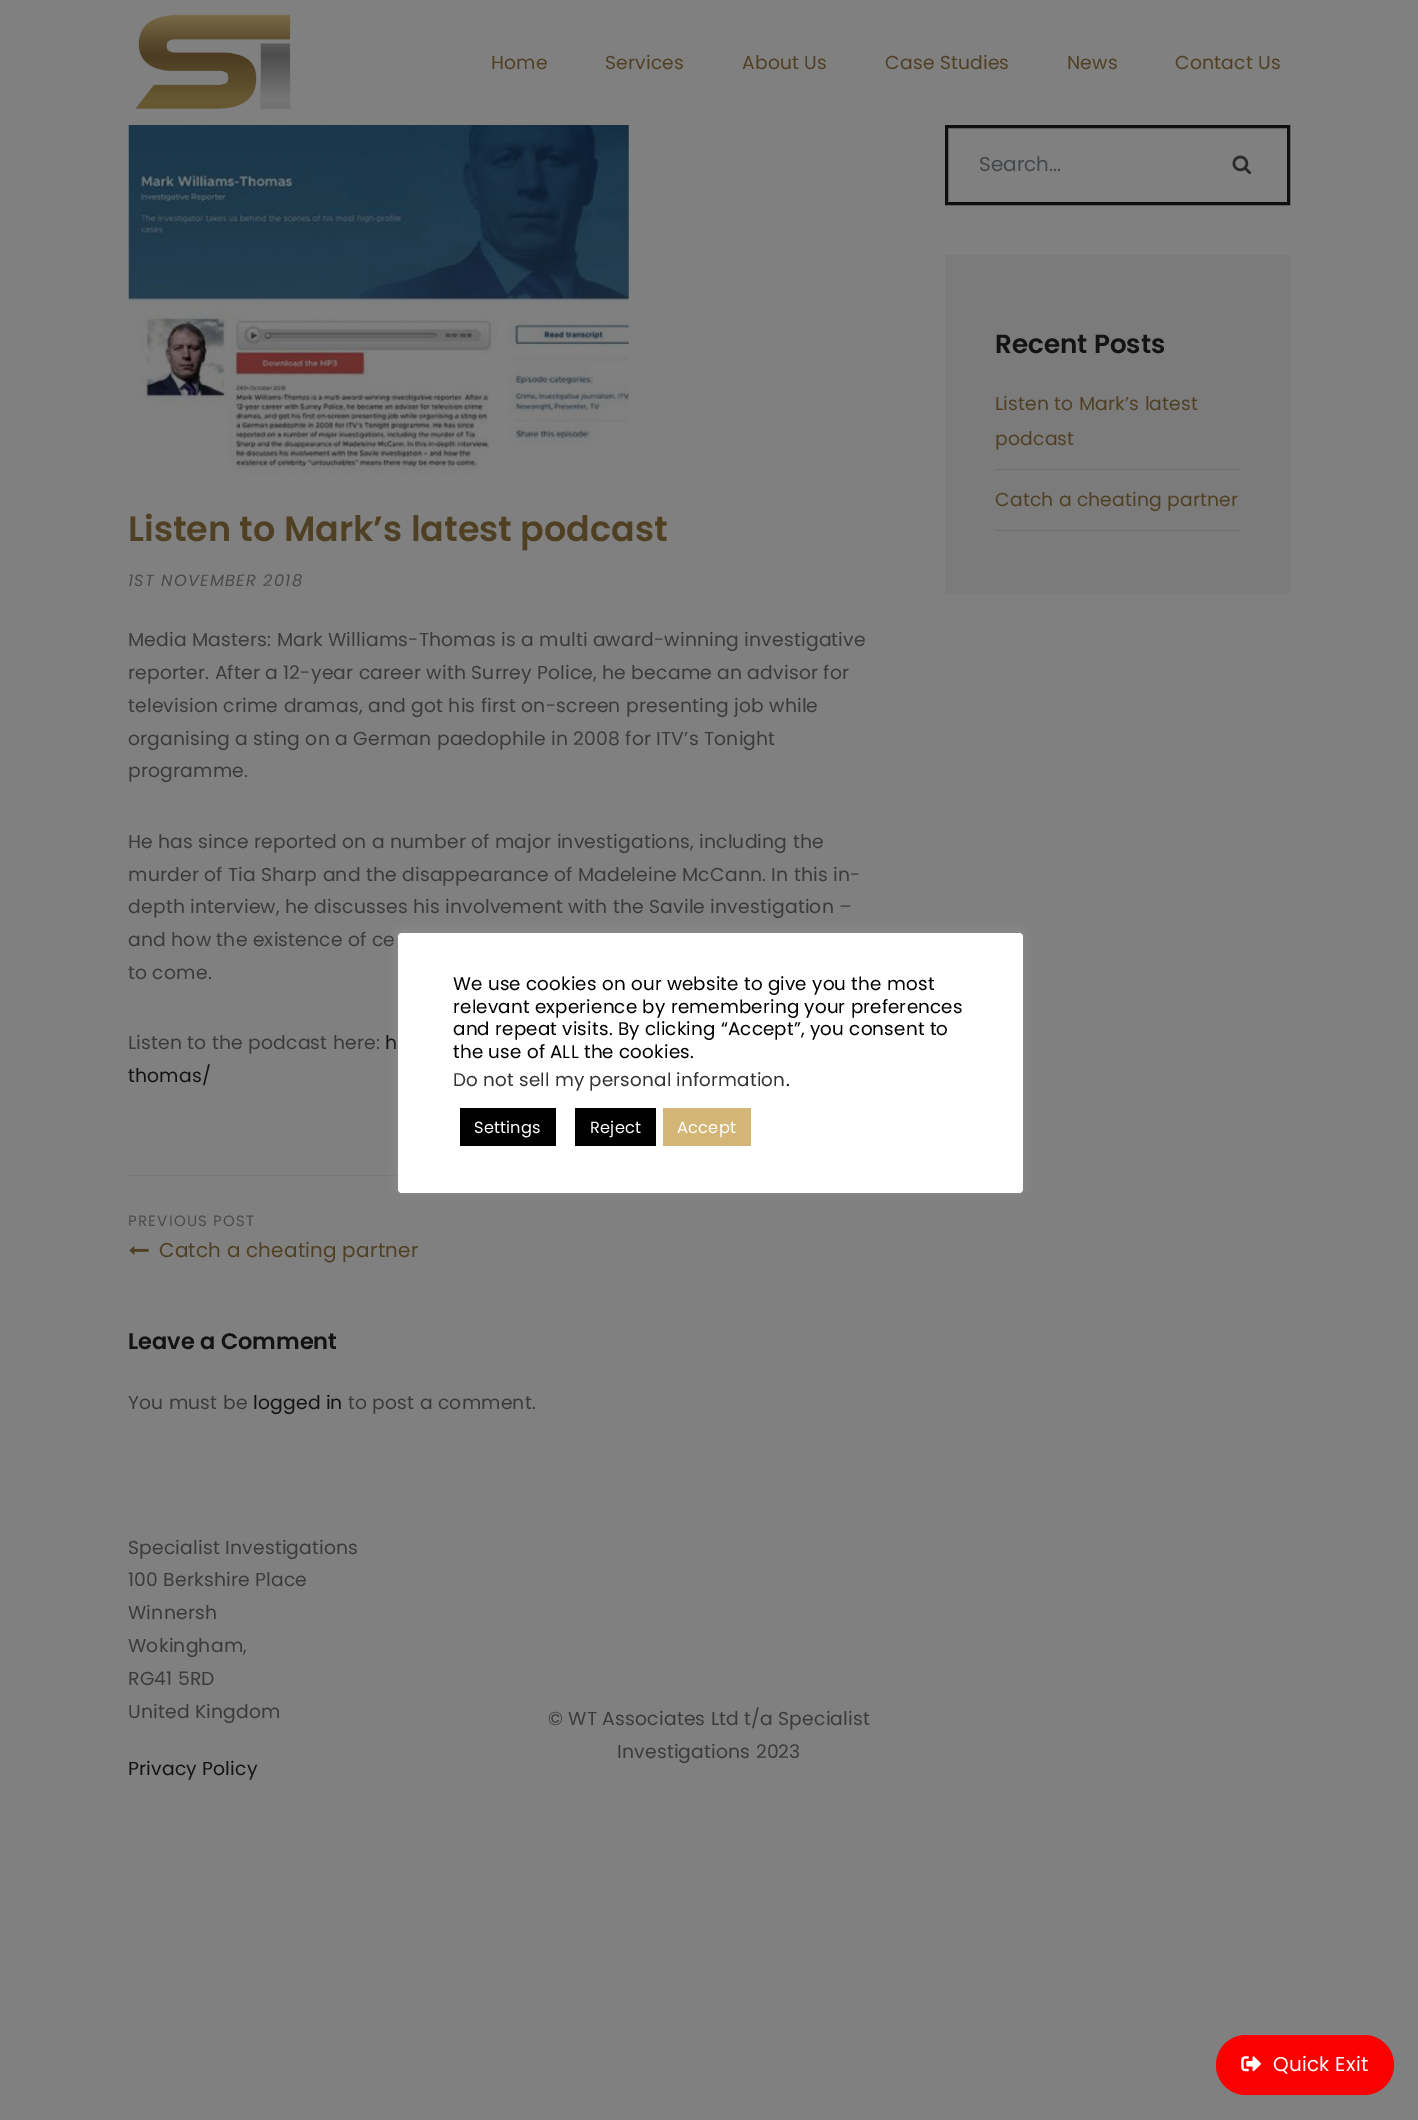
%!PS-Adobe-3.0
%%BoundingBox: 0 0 1418 2120
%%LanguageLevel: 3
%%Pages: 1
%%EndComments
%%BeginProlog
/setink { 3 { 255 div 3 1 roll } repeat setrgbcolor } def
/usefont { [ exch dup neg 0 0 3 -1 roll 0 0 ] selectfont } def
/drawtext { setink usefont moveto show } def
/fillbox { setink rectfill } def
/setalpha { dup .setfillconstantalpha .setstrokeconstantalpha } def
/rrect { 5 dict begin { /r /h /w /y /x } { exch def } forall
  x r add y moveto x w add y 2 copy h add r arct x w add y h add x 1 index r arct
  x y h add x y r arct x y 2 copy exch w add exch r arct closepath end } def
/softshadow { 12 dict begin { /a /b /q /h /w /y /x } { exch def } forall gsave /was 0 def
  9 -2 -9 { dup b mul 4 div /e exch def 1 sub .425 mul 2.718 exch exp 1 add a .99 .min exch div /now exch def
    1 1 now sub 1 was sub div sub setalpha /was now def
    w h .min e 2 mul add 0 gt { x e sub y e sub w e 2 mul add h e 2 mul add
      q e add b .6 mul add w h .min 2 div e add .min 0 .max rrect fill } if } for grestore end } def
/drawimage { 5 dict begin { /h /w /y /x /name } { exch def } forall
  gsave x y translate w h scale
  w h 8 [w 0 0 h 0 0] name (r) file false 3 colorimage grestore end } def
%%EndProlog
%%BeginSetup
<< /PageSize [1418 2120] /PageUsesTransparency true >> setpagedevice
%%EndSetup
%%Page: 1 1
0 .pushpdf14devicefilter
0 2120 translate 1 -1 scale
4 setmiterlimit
0 0 1418 2120 128 128 128 fillbox
(assets/img1.rgb) 135 14 156 95 drawimage
/Poppins-Regular 18.75 usefont
79 64 36 setink
491 69 moveto 0.2 0 (Home) ashow
605 69 moveto 0.2 0 (Services) ashow
742 69 moveto 0.2 0 (About Us) ashow
885 69 moveto 0.2 0 (Case Studies) ashow
1067 69 moveto 0.2 0 (News) ashow
1175 69 moveto 0.2 0 (Contact Us) ashow
15 15 15 setink
3 setlinewidth
946.5 126.5 342 77 rectstroke
(Search...) 979 171 /Poppins-Regular 20 67 71 75 drawtext
(assets/img2.rgb) 1232 155 20 20 drawimage
945 255 345 339 123 123 123 fillbox
(Recent Posts) 995 353 /Poppins-SemiBold 26.25 19 19 19 drawtext
995 469 245 1 112 111 109 fillbox
/Poppins-Regular 18.75 usefont
79 64 36 setink
995 410 moveto 0.2 0 (Listen to Mark’s latest) ashow
995 445 moveto 0.2 0 (podcast) ashow
995 530 245 1 112 111 109 fillbox
79 64 36 setink
995 506 moveto 0.2 0 (Catch a cheating partner) ashow
(assets/img3.rgb) 128 125 501 350 drawimage
(Listen to Mark’s latest podcast) 128 541 /Poppins-SemiBold 35 79 64 36 drawtext
/Poppins-Italic 16.25 usefont
73 73 73 setink
128 586 moveto 1.25 0 (1ST NOVEMBER 2018) ashow
/Poppins-Regular 18.75 usefont
59 59 59 setink
128 646 moveto 0.2 0 (Media Masters: Mark Williams-Thomas is a multi award-winning investigative) ashow
128 679 moveto 0.2 0 (reporter. After a 12-year career with Surrey Police, he became an advisor for) ashow
128 712 moveto 0.2 0 (television crime dramas, and got his first on-screen presenting job while) ashow
128 745 moveto 0.2 0 (organising a sting on a German paedophile in 2008 for ITV’s Tonight) ashow
128 777 moveto 0.2 0 (programme.) ashow
128 848 moveto 0.2 0 (He has since reported on a number of major investigations, including the) ashow
128 881 moveto 0.2 0 (murder of Tia Sharp and the disappearance of Madeleine McCann. In this in-) ashow
128 913 moveto 0.2 0 (depth interview, he discusses his involvement with the Savile investigation –) ashow
128 946 moveto 0.2 0 (and how the existence of ce) ashow
128 979 moveto 0.2 0 (to come.) ashow
128 1049 moveto 0.2 0 (Listen to the podcast here:) ashow
19 19 19 setink
385 1049 moveto 0.2 0 (h) ashow
128 1082 moveto 0.2 0 (thomas/) ashow
129 1175 269 1 120 120 120 fillbox
/Poppins-Regular 15 usefont
73 73 73 setink
128 1226 moveto 1.25 0 (PREVIOUS POST) ashow
(assets/img4.rgb) 129 1246 20 9 drawimage
/Poppins-Regular 20 usefont
79 64 36 setink
159 1257 moveto 0.2 0 (Catch a cheating partner) ashow
(Leave a Comment) 128 1349 /Poppins-SemiBold 22.5 19 19 19 drawtext
/Poppins-Regular 18.75 usefont
59 59 59 setink
128 1409 moveto 0.2 0 (You must be) ashow
19 19 19 setink
253 1409 moveto 0.2 0 (logged in) ashow
59 59 59 setink
348 1409 moveto 0.2 0 (to post a comment.) ashow
128 1554 moveto 0.2 0 (Specialist Investigations) ashow
128 1586 moveto 0.2 0 (100 Berkshire Place) ashow
128 1619 moveto 0.2 0 (Winnersh) ashow
128 1652 moveto 0.2 0 (Wokingham,) ashow
128 1685 moveto 0.2 0 (RG41 5RD) ashow
128 1718 moveto 0.2 0 (United Kingdom) ashow
19 19 19 setink
128 1775 moveto 0.2 0 (Privacy Policy) ashow
59 59 59 setink
548 1725 moveto 0.2 0 (© WT Associates Ltd t/a Specialist) ashow
617 1758 moveto 0.2 0 (Investigations 2023) ashow
172 171 171 setink
398 931 625 260 4 6 0.3 softshadow
255 255 255 setink
398 933 625 260 4 rrect fill
/Poppins-Regular 18.3 usefont
0 0 0 setink
453 990 moveto 0.2 0 (We use cookies on our website to give you the most) ashow
453 1013 moveto 0.2 0 (relevant experience by remembering your preferences) ashow
453 1035 moveto 0.2 0 (and repeat visits. By clicking “Accept”, you consent to) ashow
453 1058 moveto 0.2 0 (the use of ALL the cookies.) ashow
51 51 51 setink
453 1086 moveto 0.2 0 (Do not sell my personal information) ashow
0 0 0 setink
786 1086 moveto 0.2 0 (.) ashow
460 1108 96 38 0 0 0 fillbox
/Poppins-Regular 16.25 usefont
255 255 255 setink
474 1133 moveto 0.2 0 (Settings) ashow
575 1108 81 38 0 0 0 fillbox
255 255 255 setink
590 1133 moveto 0.2 0 (Reject) ashow
663 1108 88 38 211 182 117 fillbox
255 255 255 setink
677 1133 moveto 0.2 0 (Accept) ashow
250 0 0 setink
1216 2035 178 60 30 rrect fill
(assets/img5.rgb) 1241 2056 20 16 drawimage
/Poppins-Regular 20 usefont
255 255 255 setink
1273 2071 moveto 0.2 0 (Quick Exit) ashow
.poppdf14devicefilter showpage
%%EOF
